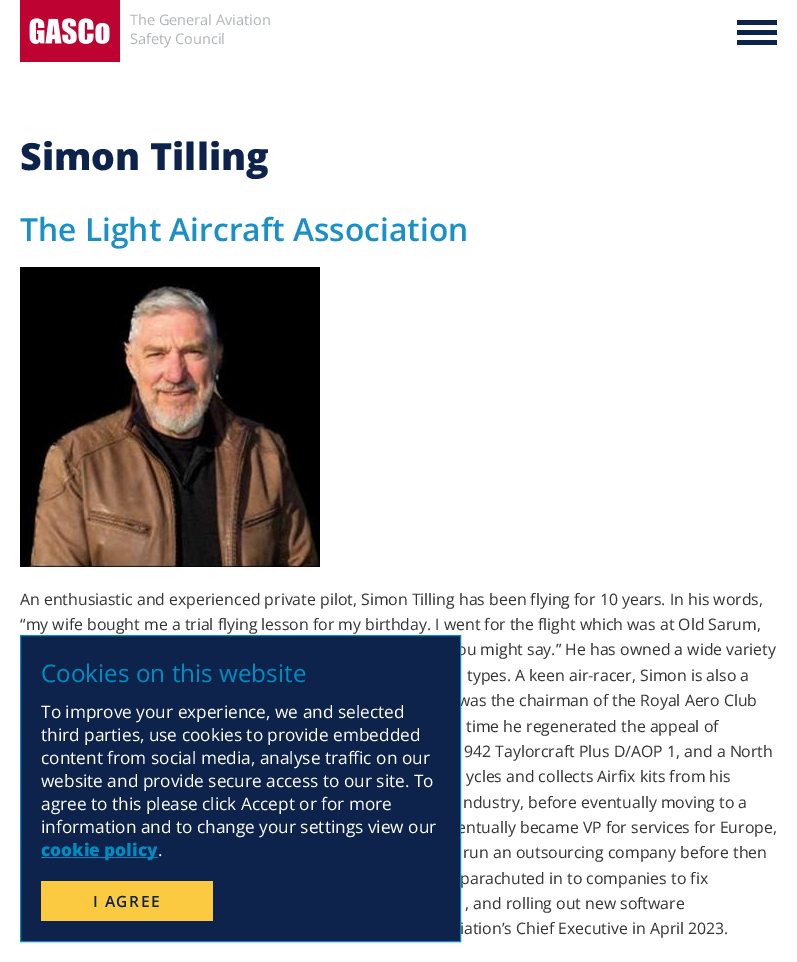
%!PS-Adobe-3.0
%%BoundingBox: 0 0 797 962
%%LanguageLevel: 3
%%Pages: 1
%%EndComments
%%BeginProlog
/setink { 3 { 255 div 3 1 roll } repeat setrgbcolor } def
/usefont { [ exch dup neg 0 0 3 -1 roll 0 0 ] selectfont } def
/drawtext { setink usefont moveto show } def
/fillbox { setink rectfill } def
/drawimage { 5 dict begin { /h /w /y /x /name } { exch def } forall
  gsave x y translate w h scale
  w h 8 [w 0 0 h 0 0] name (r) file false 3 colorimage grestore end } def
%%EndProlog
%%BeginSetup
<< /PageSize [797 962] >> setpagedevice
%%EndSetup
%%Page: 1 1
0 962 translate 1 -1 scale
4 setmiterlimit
0 0 797 962 255 255 255 fillbox
(assets/img1.rgb) 20 0 100 62 drawimage
(The General Aviation) 130 25 /OpenSans-Regular 14.5 177 181 184 drawtext
(Safety Council) 130 44 /OpenSans-Regular 14.5 177 181 184 drawtext
737 20 40 5 13 35 76 fillbox
737 30 40 5 13 35 76 fillbox
737 40 40 5 13 35 76 fillbox
(Simon Tilling) 20 170 /OpenSans-ExtraBold 37.5 13 35 76 drawtext
(The Light Aircraft Association) 20 241 /OpenSans-SemiBold 31.75 25 145 199 drawtext
(assets/img2.rgb) 20 267 300 300 drawimage
(An enthusiastic and experienced private pilot, Simon Tilling has been flying for 10 years. In his words,) 20 605 /OpenSans-Regular 15.85 51 51 51 drawtext
(“my wife bought me a trial flying lesson for my birthday. I went for the flight which was at Old Sarum,) 20 630 /OpenSans-Regular 15.85 51 51 51 drawtext
(ou might say.” He has owned a wide variety) 457 655 /OpenSans-Regular 15.85 51 51 51 drawtext
(types. A keen air-racer, Simon is also a) 467 681 /OpenSans-Regular 15.85 51 51 51 drawtext
(was the chairman of the Royal Aero Club) 458 706 /OpenSans-Regular 15.85 51 51 51 drawtext
(time he regenerated the appeal of) 466 732 /OpenSans-Regular 15.85 51 51 51 drawtext
(942 Taylorcraft Plus D/AOP 1, and a North) 464 757 /OpenSans-Regular 15.85 51 51 51 drawtext
(ycles and collects Airfix kits from his) 466 782 /OpenSans-Regular 15.85 51 51 51 drawtext
(ndustry, before eventually moving to a) 463 808 /OpenSans-Regular 15.85 51 51 51 drawtext
(entually became VP for services for Europe,) 457 833 /OpenSans-Regular 15.85 51 51 51 drawtext
(run an outsourcing company before then) 463 858 /OpenSans-Regular 15.85 51 51 51 drawtext
(parachuted in to companies to fix) 460 884 /OpenSans-Regular 15.85 51 51 51 drawtext
(, and rolling out new software) 465 909 /OpenSans-Regular 15.85 51 51 51 drawtext
(iation’s Chief Executive in April 2023.) 460 934 /OpenSans-Regular 15.85 51 51 51 drawtext
13 35 76 setink
20.5 635.5 moveto 460.5 635.5 lineto 460.5 941.5 lineto 20.5 941.5 lineto closepath gsave fill grestore
0 140 192 setink
stroke
(Cookies on this website) 41 682 /OpenSans-Regular 24.25 0 140 192 drawtext
(To improve your experience, we and selected) 41 718 /OpenSans-Regular 17.25 255 255 255 drawtext
(third parties, use cookies to provide embedded) 41 741 /OpenSans-Regular 17.25 255 255 255 drawtext
(content from social media, analyse traffic on our) 41 764 /OpenSans-Regular 17.25 255 255 255 drawtext
(website and provide secure access to our site. To) 41 787 /OpenSans-Regular 17.25 255 255 255 drawtext
(agree to this please click Accept or for more) 41 810 /OpenSans-Regular 17.25 255 255 255 drawtext
(information and to change your settings view our) 41 833 /OpenSans-Regular 17.25 255 255 255 drawtext
41 857 117 1 0 140 192 fillbox
(cookie policy) 41 856 /OpenSans-ExtraBold 17.25 0 140 192 drawtext
(.) 158 856 /OpenSans-Regular 17.25 255 255 255 drawtext
41 881 172 40 251 202 65 fillbox
/OpenSans-SemiBold 15.5 usefont
13 35 76 setink
93 907 moveto 1.5 0 (I AGREE) ashow
showpage
%%EOF
